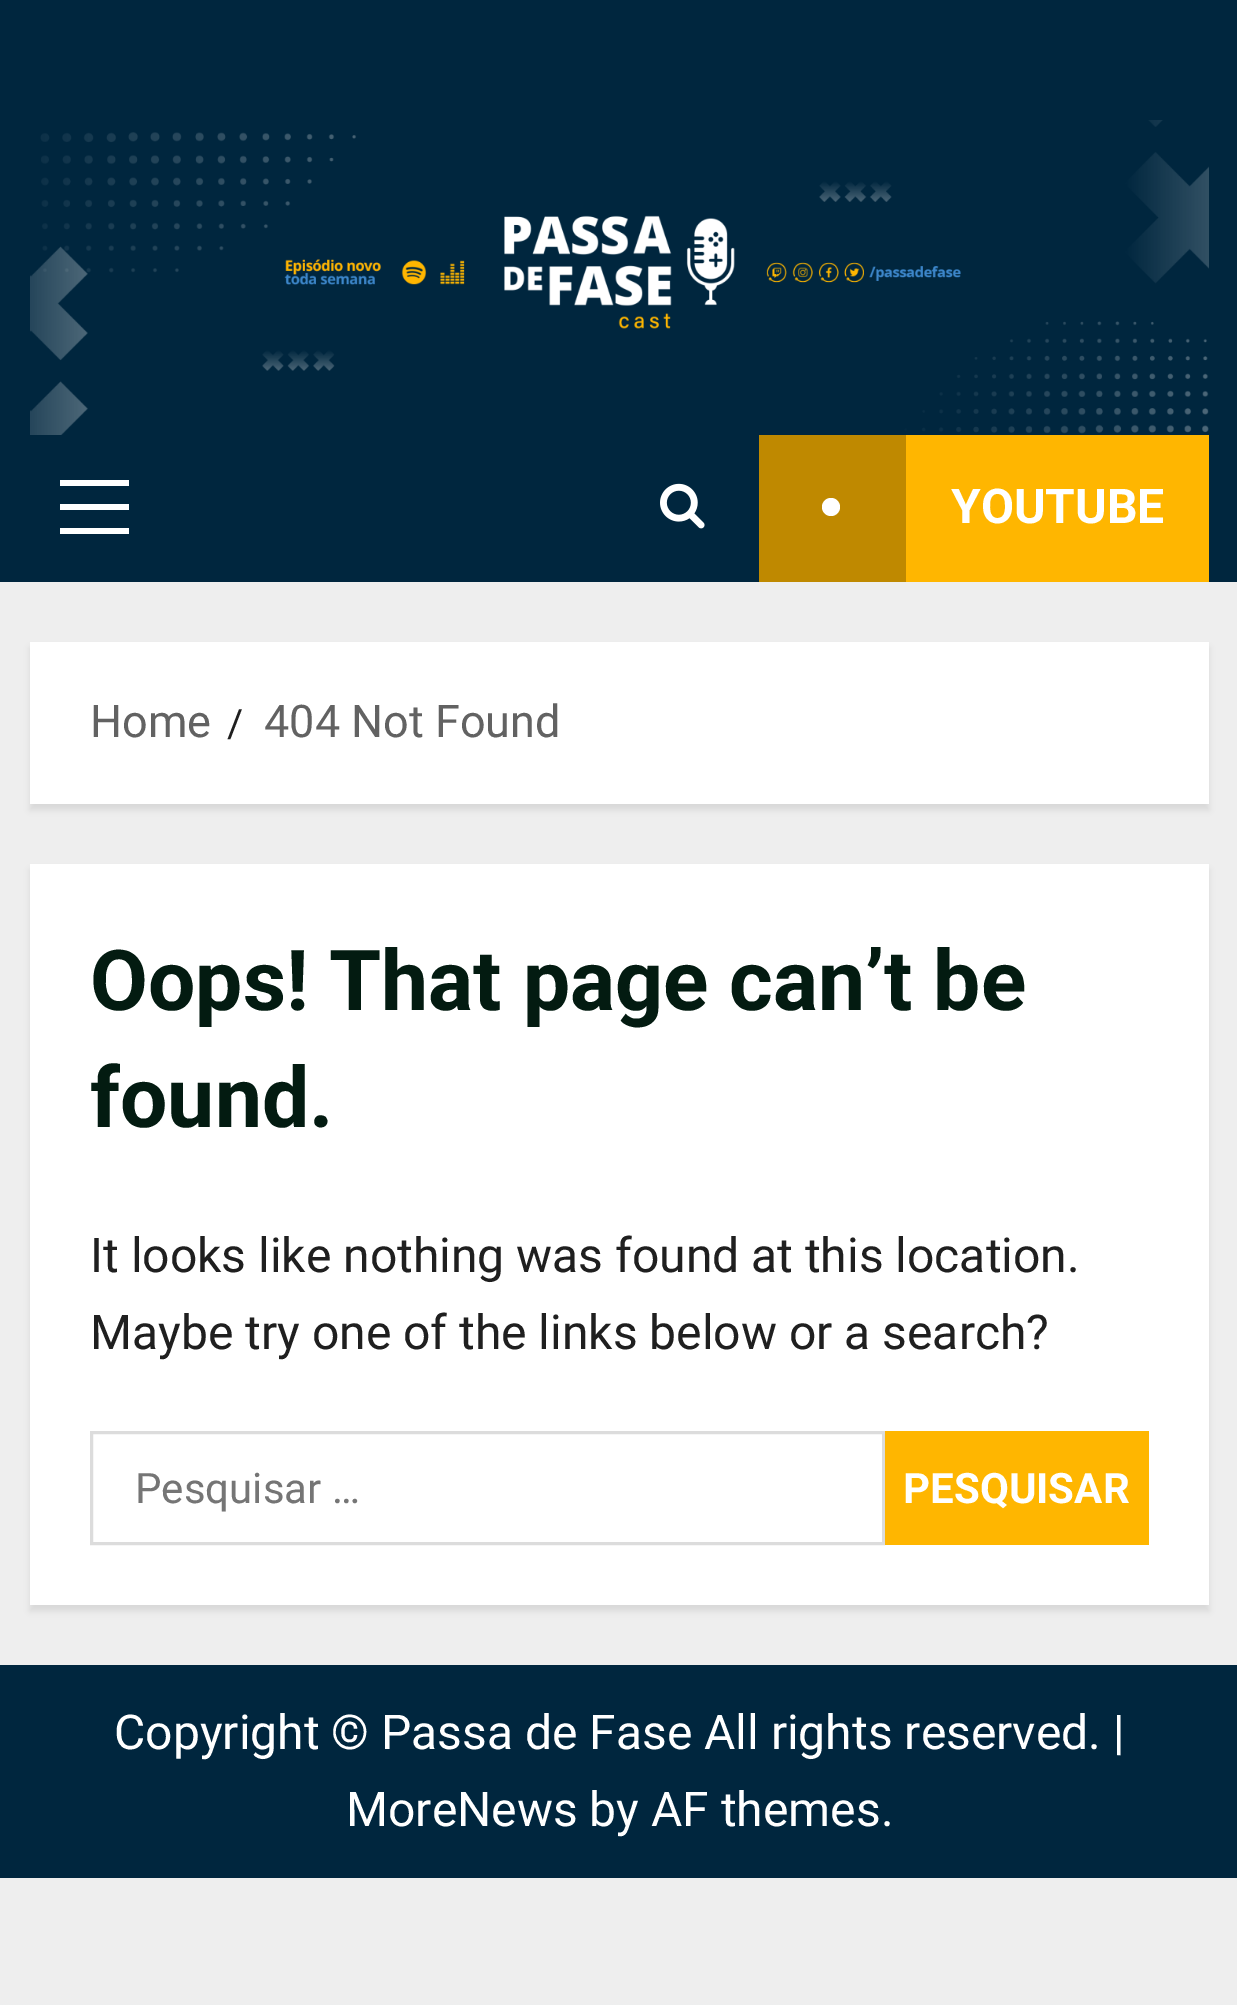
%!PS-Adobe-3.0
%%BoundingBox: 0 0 1237 2005
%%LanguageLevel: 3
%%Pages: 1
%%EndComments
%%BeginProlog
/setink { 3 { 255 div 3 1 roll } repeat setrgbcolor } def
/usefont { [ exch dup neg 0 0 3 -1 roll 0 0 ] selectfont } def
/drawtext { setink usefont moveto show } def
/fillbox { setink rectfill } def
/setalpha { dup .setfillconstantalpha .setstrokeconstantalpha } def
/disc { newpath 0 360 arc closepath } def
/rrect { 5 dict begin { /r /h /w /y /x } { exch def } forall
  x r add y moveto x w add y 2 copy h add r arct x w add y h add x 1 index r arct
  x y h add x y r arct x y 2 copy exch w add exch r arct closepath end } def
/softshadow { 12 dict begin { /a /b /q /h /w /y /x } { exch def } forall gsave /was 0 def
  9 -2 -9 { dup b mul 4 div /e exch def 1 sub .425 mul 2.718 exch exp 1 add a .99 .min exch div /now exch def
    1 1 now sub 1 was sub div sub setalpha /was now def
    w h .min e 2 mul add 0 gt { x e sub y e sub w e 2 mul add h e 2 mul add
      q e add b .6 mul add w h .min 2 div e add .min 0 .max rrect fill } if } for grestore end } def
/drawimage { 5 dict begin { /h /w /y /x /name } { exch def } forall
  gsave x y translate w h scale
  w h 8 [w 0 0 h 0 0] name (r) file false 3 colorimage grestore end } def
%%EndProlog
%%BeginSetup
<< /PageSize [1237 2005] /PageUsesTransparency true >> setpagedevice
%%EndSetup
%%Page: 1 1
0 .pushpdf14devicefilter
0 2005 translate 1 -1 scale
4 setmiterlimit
0 0 1237 2005 238 238 238 fillbox
0 0 1237 582 0 38 62 fillbox
(assets/img1.rgb) 30 120 1179 315 drawimage
60 504 69 6 255 255 255 fillbox
60 480 69 6 255 255 255 fillbox
60 528 69 6 255 255 255 fillbox
(assets/img2.rgb) 660 483 45 46 drawimage
906 435 303 147 255 182 0 fillbox
759 435 147 147 191 137 0 fillbox
255 255 255 setink
831 507 9 disc fill
(YOUTUBE) 951 523 /Roboto-Bold 48 255 255 255 drawtext
0 0 0 setink
30 648 1179 162 0 3 0.08 softshadow
30 642 1179 162 255 255 255 fillbox
(Home) 90 737 /Roboto-Regular 45 98 98 98 drawtext
(/) 227 737 /Roboto-Regular 39 31 31 31 drawtext
(404 Not Found) 264 737 /Roboto-Regular 45 98 98 98 drawtext
0 0 0 setink
30 870 1179 741 0 3 0.08 softshadow
30 864 1179 741 255 255 255 fillbox
(Oops! That page can’t be) 90 1010 /Roboto-Bold 84 3 27 17 drawtext
(found.) 90 1127 /Roboto-Bold 84 3 27 17 drawtext
(It looks like nothing was found at this location.) 90 1272 /Roboto-Regular 48 31 31 31 drawtext
(Maybe try one of the links below or a search?) 90 1349 /Roboto-Regular 48 31 31 31 drawtext
220 220 220 setink
3 setlinewidth
91.5 1432.5 792 111 rectstroke
(Pesquisar …) 135 1503 /Roboto-Regular 42 117 117 117 drawtext
885 1431 264 114 255 182 0 fillbox
(PESQUISAR) 903 1503 /Roboto-Bold 42 255 255 255 drawtext
0 1665 1237 213 0 38 62 fillbox
(Copyright © Passa de Fase All rights reserved. |) 114 1749 /Roboto-Regular 48 255 255 255 drawtext
(MoreNews by AF themes.) 346 1826 /Roboto-Regular 48 255 255 255 drawtext
.poppdf14devicefilter showpage
%%EOF
